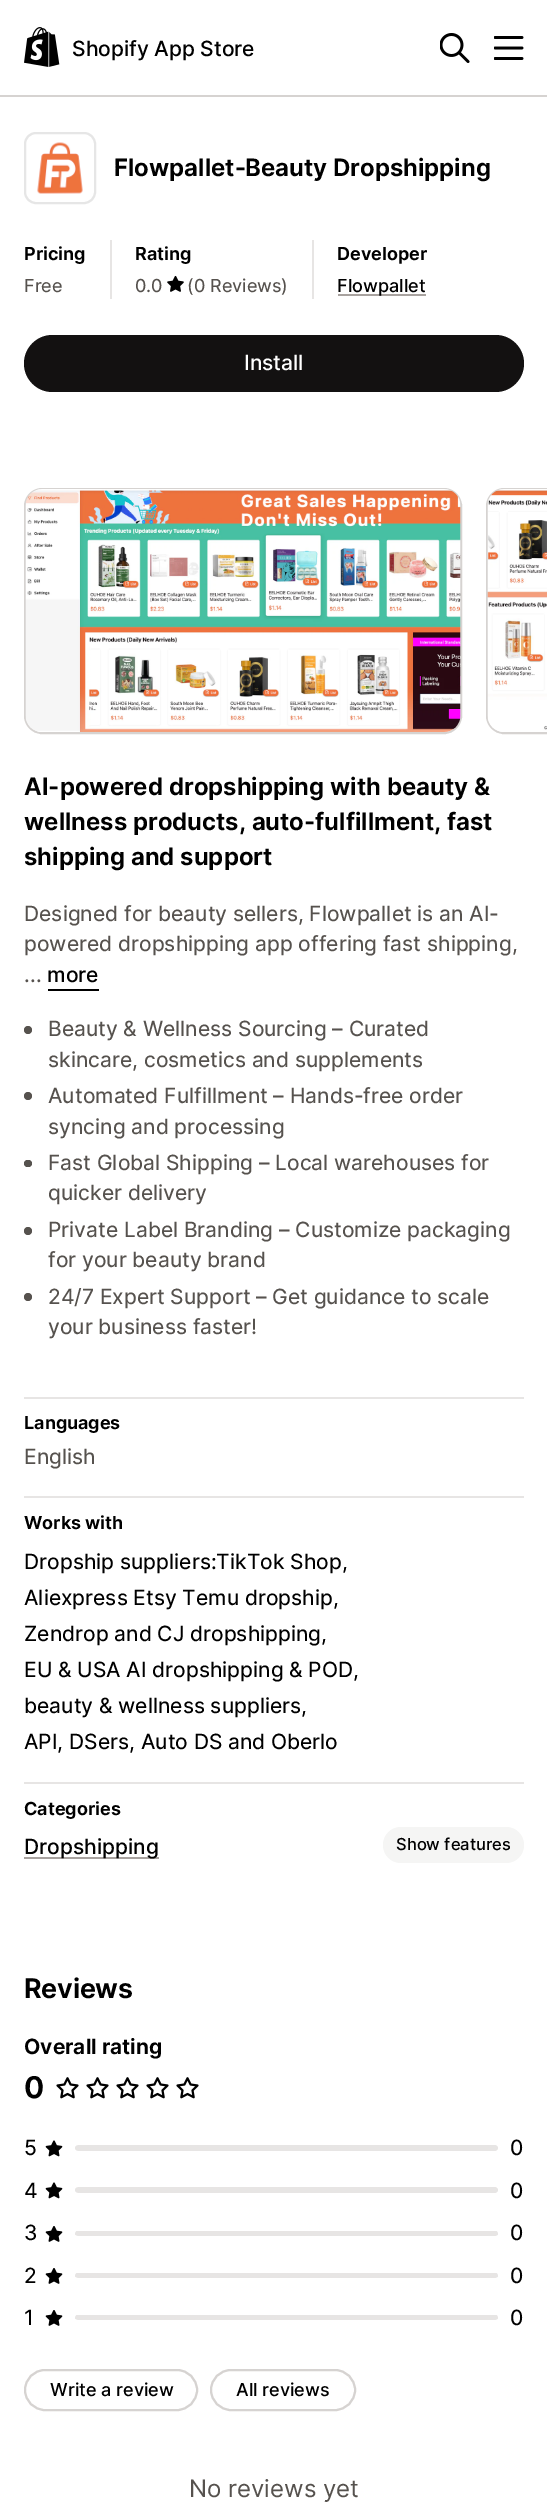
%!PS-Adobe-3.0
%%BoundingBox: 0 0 547 2511
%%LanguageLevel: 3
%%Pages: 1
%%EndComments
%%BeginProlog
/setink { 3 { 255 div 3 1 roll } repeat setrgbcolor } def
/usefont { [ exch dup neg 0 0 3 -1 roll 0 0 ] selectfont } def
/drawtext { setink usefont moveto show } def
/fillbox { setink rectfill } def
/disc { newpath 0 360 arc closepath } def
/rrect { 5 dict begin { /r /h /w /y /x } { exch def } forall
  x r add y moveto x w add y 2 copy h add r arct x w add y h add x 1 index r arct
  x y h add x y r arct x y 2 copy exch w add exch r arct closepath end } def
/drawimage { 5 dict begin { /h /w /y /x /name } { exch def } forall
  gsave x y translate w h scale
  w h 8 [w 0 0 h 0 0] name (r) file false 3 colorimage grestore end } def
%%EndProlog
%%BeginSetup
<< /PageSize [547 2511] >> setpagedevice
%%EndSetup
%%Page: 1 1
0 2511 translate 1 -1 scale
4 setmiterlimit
0 0 547 2511 255 255 255 fillbox
0 95 547 2 214 211 209 fillbox
(assets/img1.rgb) 24 27 36 40 drawimage
(Shopify App Store) 72 56 /Inter-Medium 21 0 0 0 drawtext
(assets/img2.rgb) 440 33 30 30 drawimage
(assets/img3.rgb) 494 36 30 24 drawimage
(assets/img4.rgb) 37 142 46 52 drawimage
230 230 230 setink
2 setlinewidth
25 133 70 70 11 rrect stroke
(Flowpallet‑Beauty Dropshipping) 114 176 /Inter-SemiBold 24 0 0 0 drawtext
110 240 2 59 231 229 228 fillbox
(Pricing) 24 260 /Inter-SemiBold 18 0 0 0 drawtext
(Free) 24 292 /Inter-Regular 18 86 82 78 drawtext
312 240 2 59 231 229 228 fillbox
(Rating) 135 260 /Inter-SemiBold 18 0 0 0 drawtext
(0.0) 135 292 /Inter-Regular 18 86 82 78 drawtext
(assets/img5.rgb) 167 275 17 17 drawimage
(\(0 Reviews\)) 187 292 /Inter-Regular 18 86 82 78 drawtext
(Developer) 337 260 /Inter-SemiBold 18 0 0 0 drawtext
338 294 88 2 168 162 159 fillbox
(Flowpallet) 337 292 /Inter-Medium 18 0 0 0 drawtext
19 17 17 setink
24 335 500 57 28.5 rrect fill
(Install) 244 370 /Inter-Medium 21 255 255 255 drawtext
214 211 209 setink
25 489 436 244 17 rrect stroke
(assets/img6.rgb) 25 489 436 243 drawimage
487 489 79 244 17 rrect stroke
(assets/img7.rgb) 487 489 60 243 drawimage
(AI-powered dropshipping with beauty &) 24 795 /Inter-SemiBold 24 0 0 0 drawtext
(wellness products, auto-fulfillment, fast) 24 830 /Inter-SemiBold 24 0 0 0 drawtext
(shipping and support) 24 865 /Inter-SemiBold 24 0 0 0 drawtext
(Designed for beauty sellers, Flowpallet is an AI-) 24 921 /Inter-Regular 21 86 82 78 drawtext
(powered dropshipping app offering fast shipping,) 24 951 /Inter-Regular 21 86 82 78 drawtext
(...) 24 982 /Inter-Regular 21 86 82 78 drawtext
(more) 47 982 /Inter-Medium 21 0 0 0 drawtext
48 989 51 2 0 0 0 fillbox
86 82 78 setink
28 1030 4 disc fill
(Beauty & Wellness Sourcing – Curated) 48 1036 /Inter-Regular 21 86 82 78 drawtext
(skincare, cosmetics and supplements) 48 1067 /Inter-Regular 21 86 82 78 drawtext
28 1096 4 disc fill
(Automated Fulfillment – Hands-free order) 48 1103 /Inter-Regular 21 86 82 78 drawtext
(syncing and processing) 48 1134 /Inter-Regular 21 86 82 78 drawtext
24 1160 8 7 3.5 rrect fill
(Fast Global Shipping – Local warehouses for) 48 1170 /Inter-Regular 21 86 82 78 drawtext
(quicker delivery) 48 1200 /Inter-Regular 21 86 82 78 drawtext
28 1231 4 disc fill
(Private Label Branding – Customize packaging) 48 1237 /Inter-Regular 21 86 82 78 drawtext
(for your beauty brand) 48 1267 /Inter-Regular 21 86 82 78 drawtext
28 1297 4 disc fill
(24/7 Expert Support – Get guidance to scale) 48 1304 /Inter-Regular 21 86 82 78 drawtext
(your business faster!) 48 1334 /Inter-Regular 21 86 82 78 drawtext
24 1397 500 2 231 229 228 fillbox
(Languages) 24 1429 /Inter-SemiBold 18 0 0 0 drawtext
(English) 24 1464 /Inter-Regular 21 86 82 78 drawtext
24 1496 500 2 231 229 228 fillbox
(Works with) 24 1529 /Inter-SemiBold 18 0 0 0 drawtext
(Dropship suppliers:TikTok Shop,) 24 1569 /Inter-Regular 21 0 0 0 drawtext
(Aliexpress Etsy Temu dropship,) 24 1605 /Inter-Regular 21 0 0 0 drawtext
(Zendrop and CJ dropshipping,) 24 1641 /Inter-Regular 21 0 0 0 drawtext
(EU & USA AI dropshipping & POD,) 24 1677 /Inter-Regular 21 0 0 0 drawtext
(beauty & wellness suppliers,) 24 1713 /Inter-Regular 21 0 0 0 drawtext
(API, DSers, Auto DS and Oberlo) 24 1749 /Inter-Regular 21 0 0 0 drawtext
24 1782 500 2 231 229 228 fillbox
(Categories) 24 1815 /Inter-SemiBold 18 0 0 0 drawtext
24 1857 135 2 168 162 159 fillbox
(Dropshipping) 24 1854 /Inter-Medium 21 0 0 0 drawtext
245 245 244 setink
383 1827 141 36 18 rrect fill
(Show features) 396 1850 /Inter-Medium 16.5 0 0 0 drawtext
/Inter-SemiBold 27 usefont
24 1998 moveto -0.25 0 (Reviews) ashow
(Overall rating) 24 2054 /Inter-SemiBold 21 0 0 0 drawtext
(0) 24 2098 /Inter-SemiBold 30 0 0 0 drawtext
(assets/img8.rgb) 56 2077 23 22 drawimage
(assets/img8.rgb) 86 2077 23 22 drawimage
(assets/img8.rgb) 116 2077 23 22 drawimage
(assets/img8.rgb) 146 2077 23 22 drawimage
(assets/img8.rgb) 176 2077 23 22 drawimage
(5) 24 2155 /Inter-Regular 21 0 0 0 drawtext
(assets/img9.rgb) 45 2140 18 17 drawimage
231 229 228 setink
80 2145 moveto 494 2145 lineto 496 2145 498 2146 498 2148 curveto 498 2150 496 2151 494 2151 curveto 80 2151 lineto 77 2151 75 2150 75 2148 curveto 75 2146 77 2145 80 2145 curveto closepath fill
(0) 510 2155 /Inter-Regular 21 0 0 0 drawtext
(4) 24 2198 /Inter-Regular 21 0 0 0 drawtext
(assets/img9.rgb) 45 2182 18 17 drawimage
231 229 228 setink
80 2187 moveto 494 2187 lineto 496 2187 498 2188 498 2190 curveto 498 2192 496 2193 494 2193 curveto 80 2193 lineto 77 2193 75 2192 75 2190 curveto 75 2188 77 2187 80 2187 curveto closepath fill
(0) 510 2198 /Inter-Regular 21 0 0 0 drawtext
(3) 24 2240 /Inter-Regular 21 0 0 0 drawtext
(assets/img10.rgb) 45 2226 18 16 drawimage
gsave
75 2231 437 6 rectclip
231 229 228 setink
80 2230 moveto 494 2230 lineto 496 2230 498 2232 498 2234 curveto 498 2235 496 2236 494 2236 curveto 80 2236 lineto 77 2236 75 2235 75 2234 curveto 75 2232 77 2230 80 2230 curveto closepath fill
grestore
(0) 510 2240 /Inter-Regular 21 0 0 0 drawtext
(2) 24 2283 /Inter-Regular 21 0 0 0 drawtext
(assets/img10.rgb) 45 2268 18 16 drawimage
gsave
75 2273 437 6 rectclip
231 229 228 setink
80 2272 moveto 494 2272 lineto 496 2272 498 2274 498 2276 curveto 498 2277 496 2278 494 2278 curveto 80 2278 lineto 77 2278 75 2277 75 2276 curveto 75 2274 77 2272 80 2272 curveto closepath fill
grestore
(0) 510 2283 /Inter-Regular 21 0 0 0 drawtext
(1) 24 2325 /Inter-Regular 21 0 0 0 drawtext
(assets/img10.rgb) 45 2310 18 16 drawimage
gsave
75 2315 437 6 rectclip
231 229 228 setink
80 2314 moveto 494 2314 lineto 496 2314 498 2316 498 2318 curveto 498 2319 496 2320 494 2320 curveto 80 2320 lineto 77 2320 75 2319 75 2318 curveto 75 2316 77 2314 80 2314 curveto closepath fill
grestore
(0) 510 2325 /Inter-Regular 21 0 0 0 drawtext
214 211 209 setink
25 2370 172 40 20 rrect stroke
(Write a review) 50 2396 /Inter-Medium 18 0 0 0 drawtext
214 211 209 setink
211 2370 144 40 20 rrect stroke
(All reviews) 236 2396 /Inter-Medium 18 0 0 0 drawtext
(No reviews yet) 189 2497 /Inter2-Regular 24 86 82 78 drawtext
showpage
%%EOF
